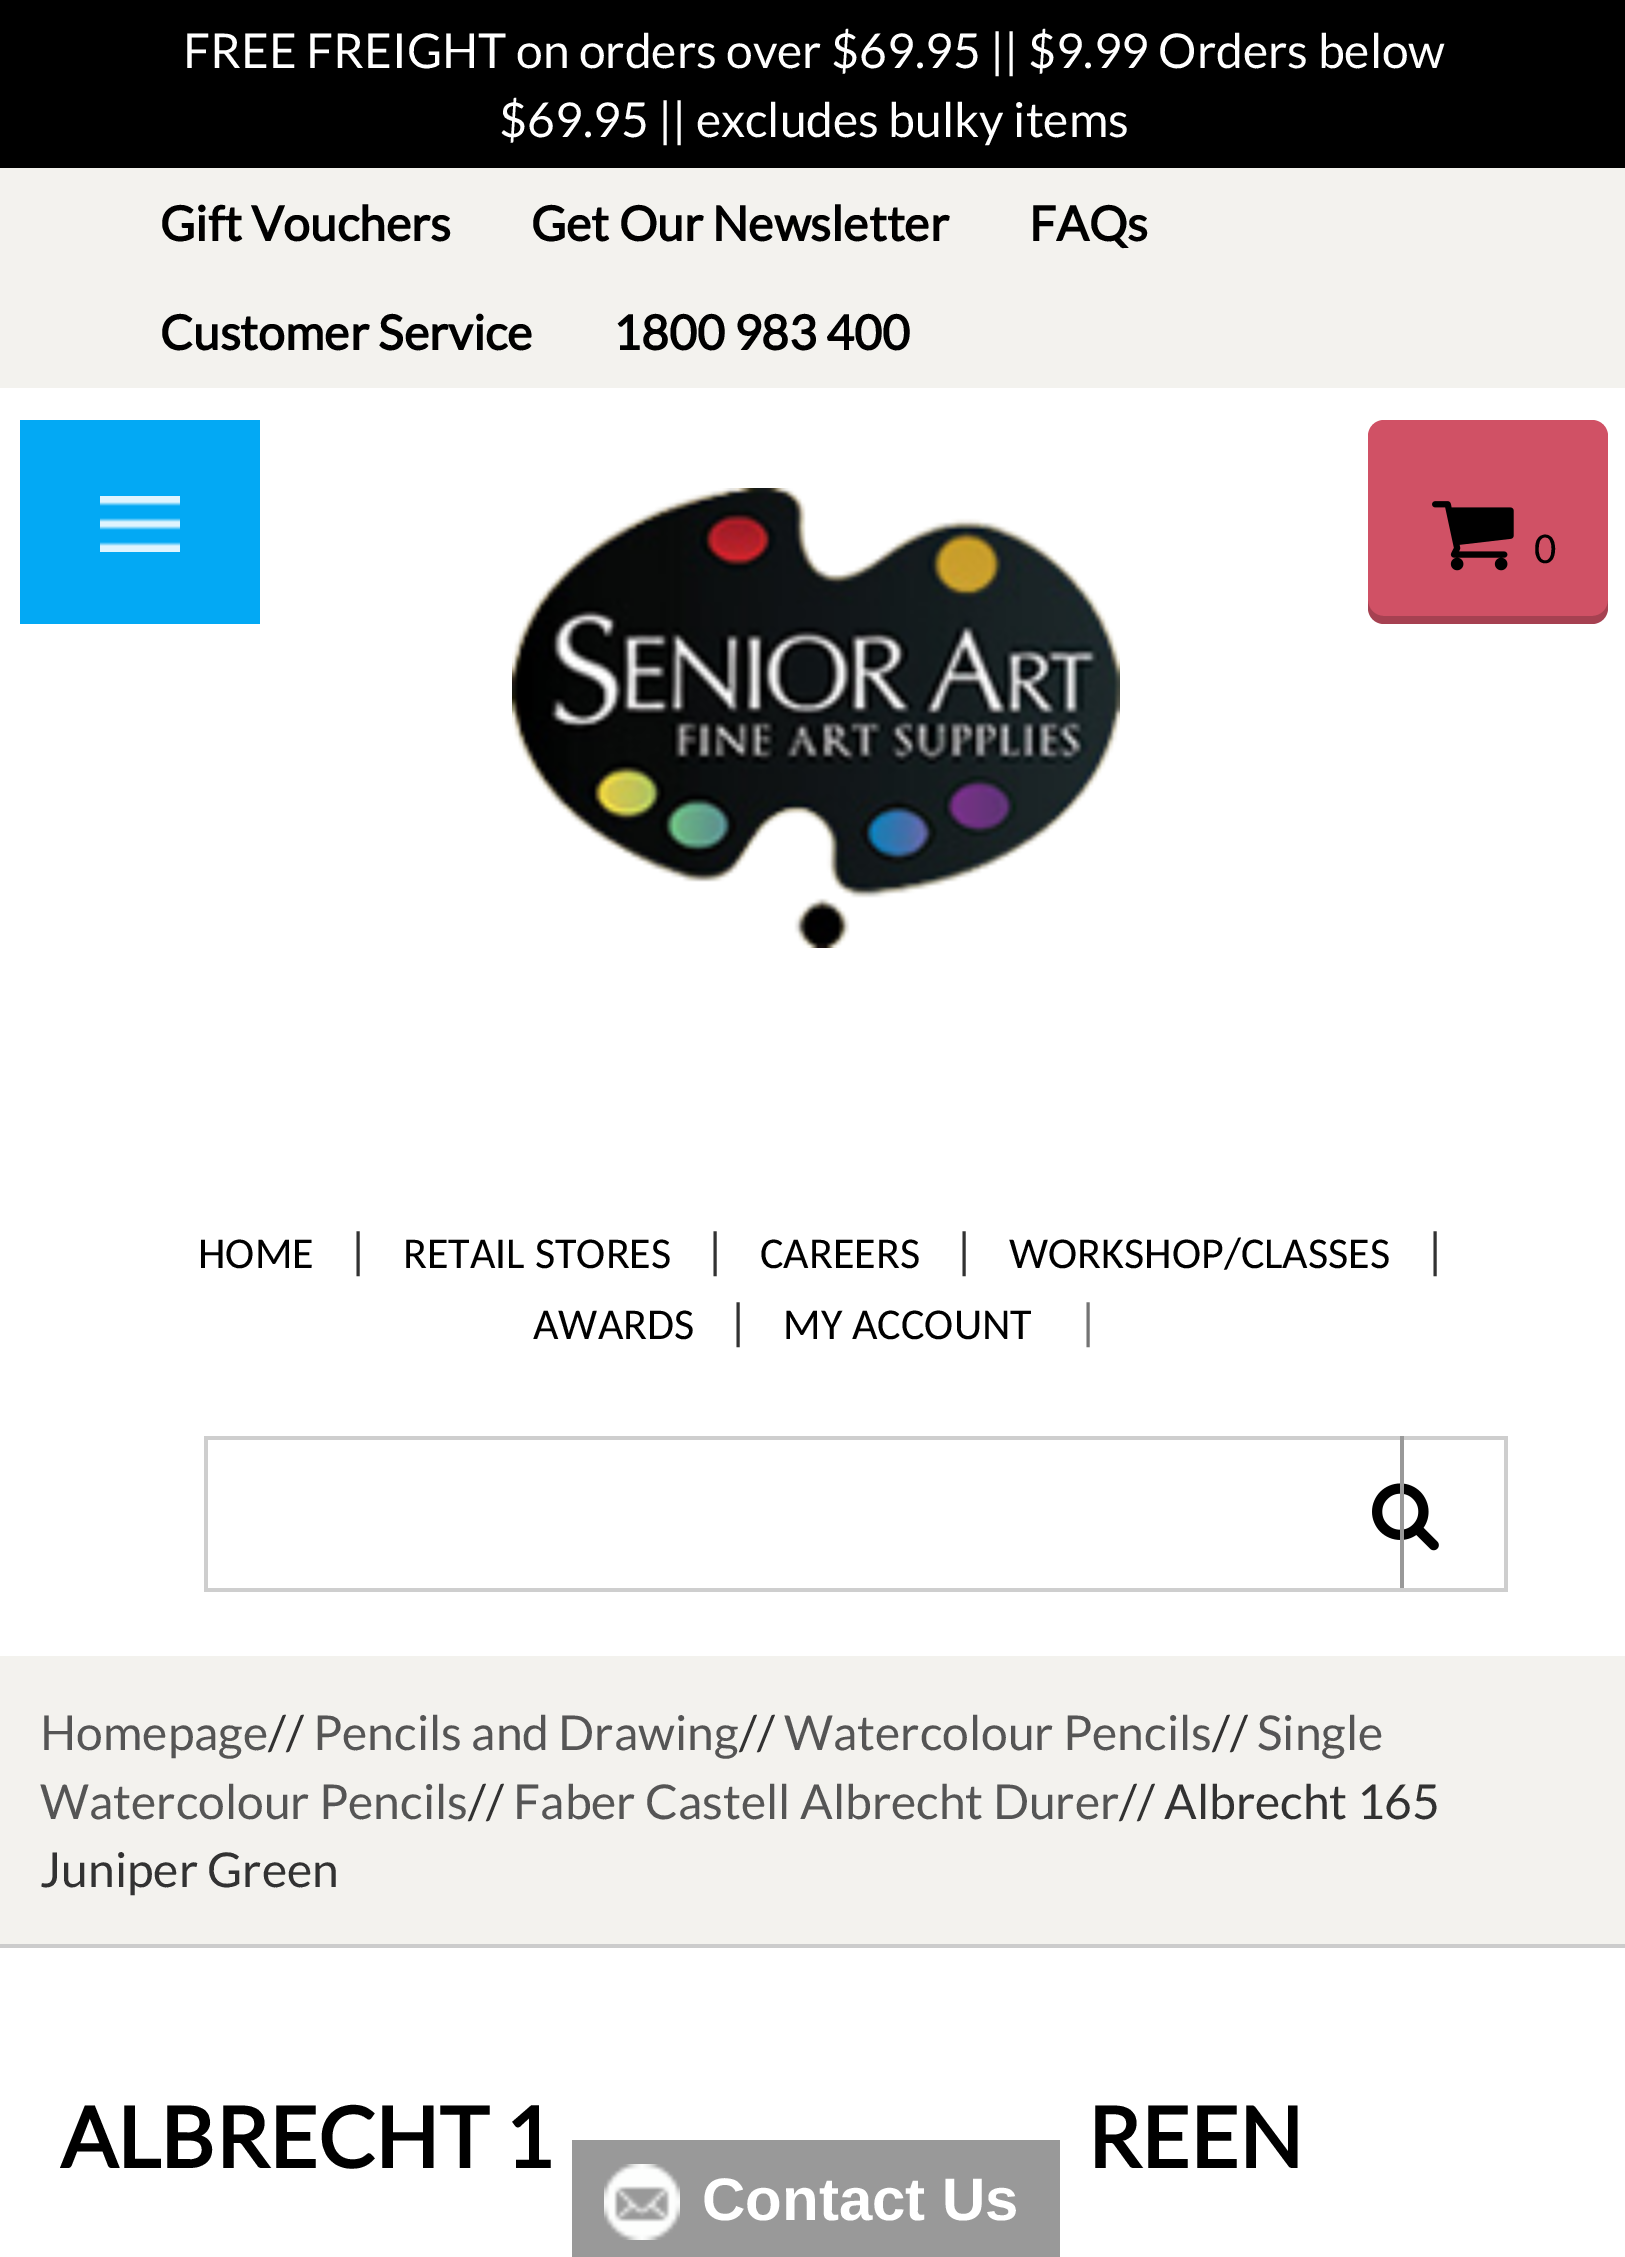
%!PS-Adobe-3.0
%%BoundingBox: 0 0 1625 2257
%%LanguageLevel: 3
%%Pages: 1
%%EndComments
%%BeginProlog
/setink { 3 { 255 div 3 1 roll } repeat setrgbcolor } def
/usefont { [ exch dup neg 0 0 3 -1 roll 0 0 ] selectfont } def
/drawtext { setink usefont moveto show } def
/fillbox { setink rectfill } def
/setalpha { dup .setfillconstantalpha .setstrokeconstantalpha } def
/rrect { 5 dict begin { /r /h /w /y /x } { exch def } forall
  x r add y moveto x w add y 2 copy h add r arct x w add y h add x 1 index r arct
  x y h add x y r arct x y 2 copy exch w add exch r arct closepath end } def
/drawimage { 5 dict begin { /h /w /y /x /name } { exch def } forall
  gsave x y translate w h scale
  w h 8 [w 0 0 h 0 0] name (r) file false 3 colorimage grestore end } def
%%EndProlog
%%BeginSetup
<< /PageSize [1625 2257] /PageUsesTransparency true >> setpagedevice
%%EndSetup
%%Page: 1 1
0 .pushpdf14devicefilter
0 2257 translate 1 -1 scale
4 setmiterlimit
0 0 1625 2257 255 255 255 fillbox
0 0 1625 168 0 0 0 fillbox
(FREE FREIGHT on orders over $69.95 || $9.99 Orders below) 183 68 /Lato-Regular 48 255 255 255 drawtext
($69.95 || excludes bulky items) 499 137 /Lato-Regular 48 255 255 255 drawtext
0 168 1625 220 243 242 238 fillbox
(Gift Vouchers) 160 241 /Lato-Bold 48 0 0 0 drawtext
(Get Our Newsletter) 531 241 /Lato-Bold 48 0 0 0 drawtext
(FAQs) 1029 241 /Lato-Bold 48 0 0 0 drawtext
(Customer Service) 160 350 /Lato-Bold 48 0 0 0 drawtext
(1800 983 400) 613 350 /Lato-Bold 48 0 0 0 drawtext
20 420 240 204 3 169 244 fillbox
(assets/img1.rgb) 100 496 80 56 drawimage
(assets/img2.rgb) 512 488 608 460 drawimage
208 81 101 setink
1368 420 240 204 16 rrect fill
0.2 setalpha
0 0 0 setink
1368 600 moveto 1368 608 lineto 1368 617 1375 624 1384 624 curveto 1592 624 lineto 1601 624 1608 617 1608 608 curveto 1608 600 lineto 1608 609 1601 616 1592 616 curveto 1384 616 lineto 1375 616 1368 609 1368 600 curveto closepath fill
1 setalpha
(assets/img3.rgb) 1432 501 82 70 drawimage
(0) 1534 563 /Carlito-Regular 44 0 0 0 drawtext
(HOME) 198 1268 /Carlito-Regular 44 0 0 0 drawtext
(|) 351 1268 /Lato-Regular 48 50 50 50 drawtext
(RETAIL STORES) 403 1268 /Carlito-Regular 44 0 0 0 drawtext
(|) 708 1268 /Lato-Regular 48 50 50 50 drawtext
(CAREERS) 760 1268 /Carlito-Regular 44 0 0 0 drawtext
(|) 957 1268 /Lato-Regular 48 50 50 50 drawtext
(WORKSHOP/CLASSES) 1009 1268 /Carlito-Regular 44 0 0 0 drawtext
(|) 1428 1268 /Lato-Regular 48 50 50 50 drawtext
(AWARDS) 533 1339 /Carlito-Regular 44 0 0 0 drawtext
(|) 731 1339 /Lato-Regular 48 50 50 50 drawtext
(MY ACCOUNT) 783 1339 /Carlito-Regular 44 0 0 0 drawtext
(|) 1081 1339 /Lato-Regular 48 116 116 116 drawtext
204 1436 1304 4 206 206 206 fillbox
1504 1436 4 156 206 206 206 fillbox
1404 1588 104 4 206 206 206 fillbox
(assets/img4.rgb) 1372 1483 67 68 drawimage
1400 1436 4 156 153 153 153 fillbox
204 1588 1200 4 206 206 206 fillbox
204 1436 4 156 206 206 206 fillbox
0 1656 1625 288 243 242 238 fillbox
0 1944 1625 4 204 204 204 fillbox
(Homepage) 40 1750 /Lato-Regular 48 85 85 85 drawtext
(//) 268 1750 /Lato-Regular 48 50 50 50 drawtext
(Pencils and Drawing) 313 1750 /Lato-Regular 48 85 85 85 drawtext
(//) 739 1750 /Lato-Regular 48 50 50 50 drawtext
(Watercolour Pencils) 784 1750 /Lato-Regular 48 85 85 85 drawtext
(//) 1212 1750 /Lato-Regular 48 50 50 50 drawtext
(Single) 1257 1750 /Lato-Regular 48 85 85 85 drawtext
(Watercolour Pencils) 40 1819 /Lato-Regular 48 85 85 85 drawtext
(//) 468 1819 /Lato-Regular 48 50 50 50 drawtext
(Faber Castell Albrecht Durer) 513 1819 /Lato-Regular 48 85 85 85 drawtext
(// Albrecht 165) 1119 1819 /Lato-Regular 48 50 50 50 drawtext
(Juniper Green) 40 1887 /Lato-Regular 48 50 50 50 drawtext
(ALBRECHT 1) 60 2168 /Lato-Bold 84 0 0 0 drawtext
(REEN) 1087 2168 /Lato-Bold 84 0 0 0 drawtext
572 2140 488 117 153 153 153 fillbox
(assets/img5.rgb) 604 2164 76 76 drawimage
(Contact Us) 702 2220 /LiberationSans-Bold 60 255 255 255 drawtext
.poppdf14devicefilter showpage
%%EOF
